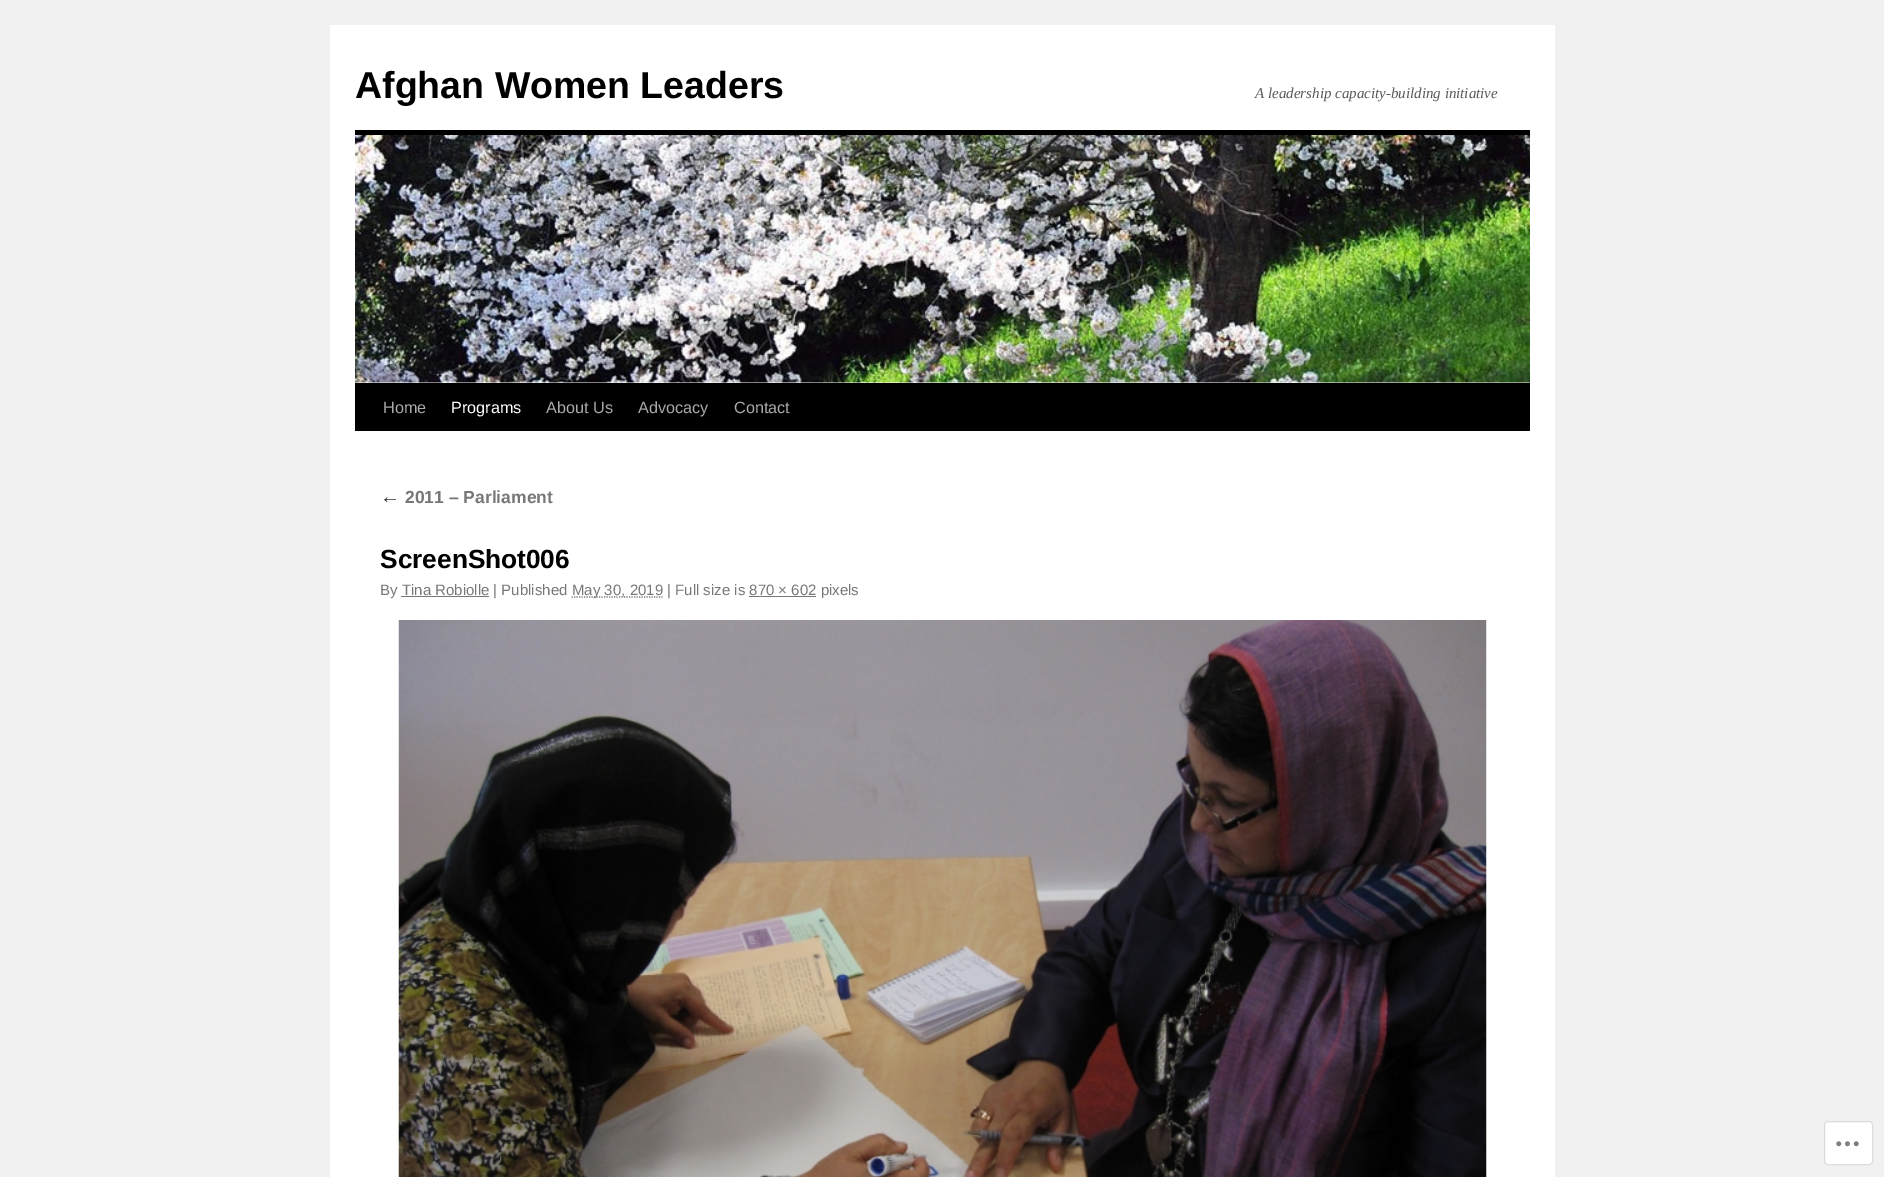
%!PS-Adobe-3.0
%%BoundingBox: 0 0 1884 1177
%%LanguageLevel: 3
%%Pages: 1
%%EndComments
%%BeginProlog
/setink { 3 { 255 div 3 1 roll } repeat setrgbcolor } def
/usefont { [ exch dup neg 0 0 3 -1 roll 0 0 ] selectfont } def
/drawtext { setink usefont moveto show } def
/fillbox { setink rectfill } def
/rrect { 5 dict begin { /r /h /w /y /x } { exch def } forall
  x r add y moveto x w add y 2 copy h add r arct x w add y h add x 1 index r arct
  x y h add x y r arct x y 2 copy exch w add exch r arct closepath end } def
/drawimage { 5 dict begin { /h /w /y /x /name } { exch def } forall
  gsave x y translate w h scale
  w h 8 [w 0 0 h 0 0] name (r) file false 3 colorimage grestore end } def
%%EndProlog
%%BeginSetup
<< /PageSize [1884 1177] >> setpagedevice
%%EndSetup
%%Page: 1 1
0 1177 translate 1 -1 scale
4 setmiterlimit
0 0 1884 1177 241 241 241 fillbox
330 25 1225 1152 255 255 255 fillbox
(Afghan Women Leaders) 355 98 /LiberationSans-Bold 37.5 0 0 0 drawtext
(A leadership capacity-building initiative) 1255 98 /LiberationSerif-Italic 15 89 89 89 drawtext
355 130 1175 5 0 0 0 fillbox
355 383 1175 48 0 0 0 fillbox
(assets/img1.rgb) 355 135 1175 248 drawimage
(Home) 383 413 /LiberationSans-Regular 16.25 170 170 170 drawtext
(Programs) 451 413 /LiberationSans-Regular 16.25 255 255 255 drawtext
(About Us) 546 413 /LiberationSans-Regular 16.25 170 170 170 drawtext
(Advocacy) 638 413 /LiberationSans-Regular 16.25 170 170 170 drawtext
(Contact) 734 413 /LiberationSans-Regular 16.25 170 170 170 drawtext
(←) 380 503 /LiberationSerif-Italic 20 51 51 51 drawtext
(2011 – Parliament) 405 503 /LiberationSans-Bold 17.5 119 119 119 drawtext
(ScreenShot006) 380 568 /LiberationSans-Bold 26.25 0 0 0 drawtext
(By Tina Robiolle | Published) 380 595 /LiberationSans-Regular 15 119 119 119 drawtext
1.2 setlinewidth
[1.25 1.25] 0 setdash
571.5 597 moveto 662.5 597 lineto stroke
(May 30, 2019 | Full size is 870 × 602 pixels) 572 595 /LiberationSans-Regular 15 119 119 119 drawtext
401 596 88 1 119 119 119 fillbox
749 596 67 1 119 119 119 fillbox
(assets/img2.rgb) 398 620 1089 557 drawimage
255 255 255 setink
1824.5 1121.5 48 43 3.5 rrect gsave fill grestore
220 220 222 setink
1 setlinewidth
[] 0 setdash
stroke
(assets/img3.rgb) 1836 1141 23 6 drawimage
showpage
%%EOF
